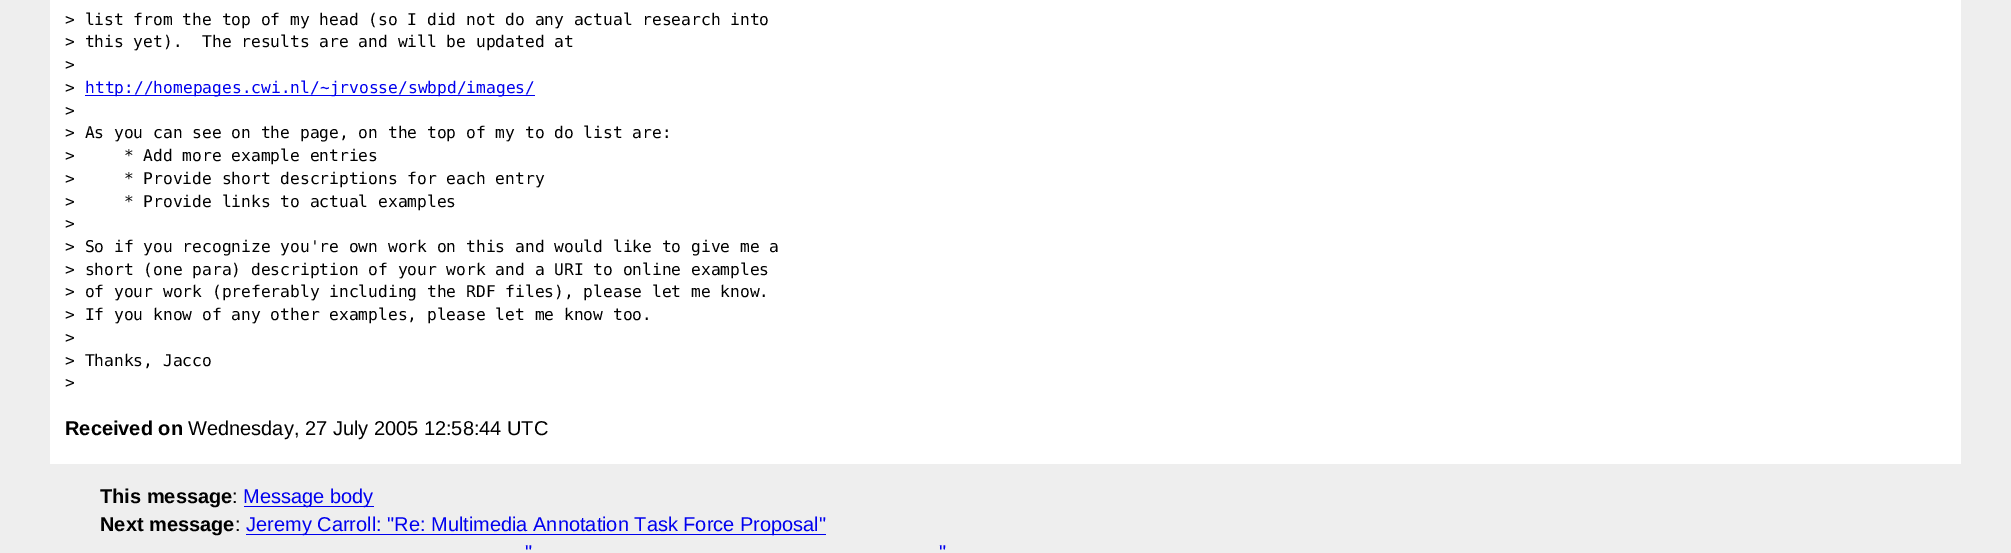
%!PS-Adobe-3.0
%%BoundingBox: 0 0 2011 553
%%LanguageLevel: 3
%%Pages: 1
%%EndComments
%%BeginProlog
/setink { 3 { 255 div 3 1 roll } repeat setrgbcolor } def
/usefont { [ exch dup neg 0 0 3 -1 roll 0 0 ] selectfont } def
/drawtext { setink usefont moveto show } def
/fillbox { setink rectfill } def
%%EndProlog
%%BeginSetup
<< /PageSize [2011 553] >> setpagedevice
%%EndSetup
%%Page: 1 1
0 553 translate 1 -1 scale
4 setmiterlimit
0 0 2011 553 238 238 238 fillbox
50 0 1911 464 255 255 255 fillbox
(> list from the top of my head \(so I did not do any actual research into) 65 25 /DejaVuSansMono-Regular 16.25 0 0 0 drawtext
(> this yet\).  The results are and will be updated at) 65 47 /DejaVuSansMono-Regular 16.25 0 0 0 drawtext
(>) 65 70 /DejaVuSansMono-Regular 16.25 0 0 0 drawtext
(>) 65 93 /DejaVuSansMono-Regular 16.25 0 0 0 drawtext
85 95 450 1 0 0 238 fillbox
(http://homepages.cwi.nl/~jrvosse/swbpd/images/) 85 93 /DejaVuSansMono-Regular 16.25 0 0 238 drawtext
(>) 65 116 /DejaVuSansMono-Regular 16.25 0 0 0 drawtext
(> As you can see on the page, on the top of my to do list are:) 65 138 /DejaVuSansMono-Regular 16.25 0 0 0 drawtext
(>     * Add more example entries) 65 161 /DejaVuSansMono-Regular 16.25 0 0 0 drawtext
(>     * Provide short descriptions for each entry) 65 184 /DejaVuSansMono-Regular 16.25 0 0 0 drawtext
(>     * Provide links to actual examples) 65 207 /DejaVuSansMono-Regular 16.25 0 0 0 drawtext
(>) 65 229 /DejaVuSansMono-Regular 16.25 0 0 0 drawtext
(> So if you recognize you're own work on this and would like to give me a) 65 252 /DejaVuSansMono-Regular 16.25 0 0 0 drawtext
(> short \(one para\) description of your work and a URI to online examples) 65 275 /DejaVuSansMono-Regular 16.25 0 0 0 drawtext
(> of your work \(preferably including the RDF files\), please let me know.) 65 297 /DejaVuSansMono-Regular 16.25 0 0 0 drawtext
(> If you know of any other examples, please let me know too.) 65 320 /DejaVuSansMono-Regular 16.25 0 0 0 drawtext
(>) 65 343 /DejaVuSansMono-Regular 16.25 0 0 0 drawtext
(> Thanks, Jacco) 65 366 /DejaVuSansMono-Regular 16.25 0 0 0 drawtext
(>) 65 388 /DejaVuSansMono-Regular 16.25 0 0 0 drawtext
(Received on) 65 435 /LiberationSans-Bold 20 0 0 0 drawtext
(Wednesday, 27 July 2005 12:58:44 UTC) 188 435 /LiberationSans-Regular 20 0 0 0 drawtext
(This message) 100 503 /LiberationSans-Bold 20 0 0 0 drawtext
(:) 232 503 /LiberationSans-Regular 20 0 0 0 drawtext
244 506 130 1 0 0 238 fillbox
(Message body) 243 503 /LiberationSans-Regular 20 0 0 238 drawtext
(Next message) 100 531 /LiberationSans-Bold 20 0 0 0 drawtext
(:) 235 531 /LiberationSans-Regular 20 0 0 0 drawtext
246 534 580 1 0 0 238 fillbox
(Jeremy Carroll: "Re: Multimedia Annotation Task Force Proposal") 246 531 /LiberationSans-Regular 20 0 0 238 drawtext
(") 525 559 /LiberationSans-Regular 20 0 0 238 drawtext
(") 939 559 /LiberationSans-Regular 20 0 0 238 drawtext
showpage
%%EOF
